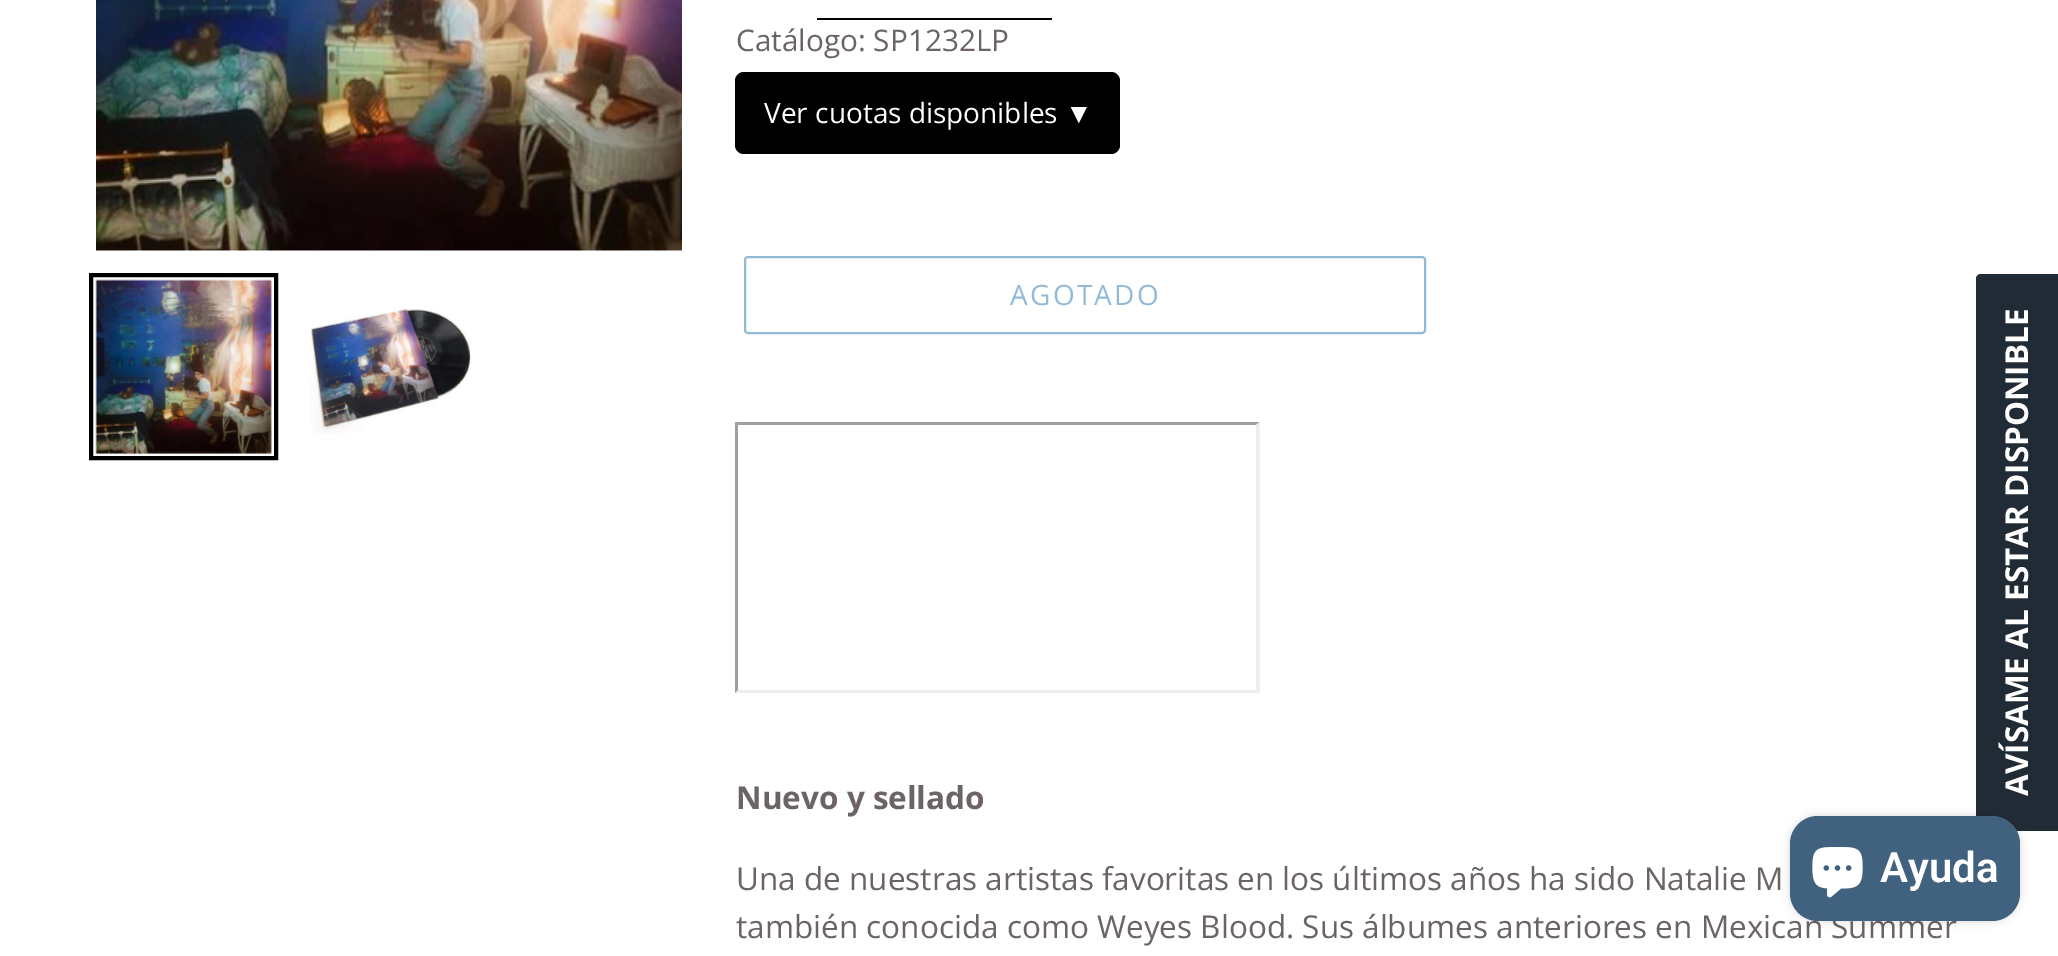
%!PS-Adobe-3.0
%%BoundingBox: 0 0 2058 956
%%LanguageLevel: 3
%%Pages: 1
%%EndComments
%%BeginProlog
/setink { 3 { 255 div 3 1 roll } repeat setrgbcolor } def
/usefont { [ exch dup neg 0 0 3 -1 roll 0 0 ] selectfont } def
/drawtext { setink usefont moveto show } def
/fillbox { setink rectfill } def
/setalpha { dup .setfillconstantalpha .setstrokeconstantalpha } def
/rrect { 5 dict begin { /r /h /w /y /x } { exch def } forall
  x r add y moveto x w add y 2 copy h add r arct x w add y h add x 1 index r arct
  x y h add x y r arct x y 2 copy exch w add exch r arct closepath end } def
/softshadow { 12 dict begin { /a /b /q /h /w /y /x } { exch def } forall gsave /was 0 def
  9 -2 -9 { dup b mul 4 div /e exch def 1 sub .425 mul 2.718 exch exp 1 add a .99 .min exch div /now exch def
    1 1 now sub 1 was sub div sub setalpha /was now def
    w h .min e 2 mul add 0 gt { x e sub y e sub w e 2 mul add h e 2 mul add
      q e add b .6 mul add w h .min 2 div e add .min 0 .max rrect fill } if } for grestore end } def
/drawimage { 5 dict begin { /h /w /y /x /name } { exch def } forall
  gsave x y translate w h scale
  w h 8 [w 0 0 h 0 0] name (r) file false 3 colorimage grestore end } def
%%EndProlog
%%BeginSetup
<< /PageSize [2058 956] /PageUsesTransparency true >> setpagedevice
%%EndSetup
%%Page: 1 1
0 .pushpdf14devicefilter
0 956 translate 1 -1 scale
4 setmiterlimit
0 0 2058 956 255 255 255 fillbox
(assets/img1.rgb) 96 0 586 251 drawimage
0 0 0 setink
4 setlinewidth
91 275 185 183 rectstroke
(assets/img2.rgb) 95 279 177 175 drawimage
(assets/img3.rgb) 310 308 162 126 drawimage
817 18 235 2 0 0 0 fillbox
(Catálogo: SP1232LP) 736 51 /OpenSans-Regular 29.75 107 99 101 drawtext
0 0 0 setink
735 72 385 82 9 rrect fill
(Ver cuotas disponibles) 764 123 /OpenSans-Regular 28 255 255 255 drawtext
(▼) 1065 123 /LiberationSans-Regular 28 255 255 255 drawtext
146 186 215 setink
2 setlinewidth
745 257 680 76 3 rrect stroke
/OpenSans-Regular 28 usefont
1010 305 moveto 2.25 0 (AGOTADO) ashow
159 159 159 setink
735 422 moveto 1260 422 lineto 1256 425 lineto 738 425 lineto closepath fill
238 238 238 setink
1260 422 moveto 1260 693 lineto 1256 690 lineto 1256 425 lineto closepath fill
1260 693 moveto 735 693 lineto 738 690 lineto 1256 690 lineto closepath fill
159 159 159 setink
735 693 moveto 735 422 lineto 738 425 lineto 738 690 lineto closepath fill
(Nuevo y sellado) 736 809 /OpenSans-Bold 31.5 107 99 101 drawtext
(Una de nuestras artistas favoritas en los últimos años ha sido Natalie M) 736 890 /OpenSans-Regular 31.5 107 99 101 drawtext
(también conocida como Weyes Blood. Sus álbumes anteriores en Mexican Summer) 736 938 /OpenSans-Regular 31.5 107 99 101 drawtext
33 43 54 setink
1976 826 moveto 1976 279 lineto 1976 276 1978 274 1981 274 curveto 2058 274 lineto 2058 831 lineto 1981 831 lineto 1978 831 1976 829 1976 826 curveto closepath fill
/OpenSans-Bold 31.5 usefont
255 255 255 setink
gsave 2028 796 translate -90 rotate 0 0 moveto (AVÍSAME AL ESTAR DISPONIBLE) show grestore
0 0 0 setink
1790 816 230 105 28 4.5 0.15 softshadow
64 98 126 setink
1790 816 230 105 28 rrect fill
(assets/img4.rgb) 1812 847 51 51 drawimage
(Ayuda) 1880 882 /Roboto-SemiBold 42 255 255 255 drawtext
.poppdf14devicefilter showpage
%%EOF
